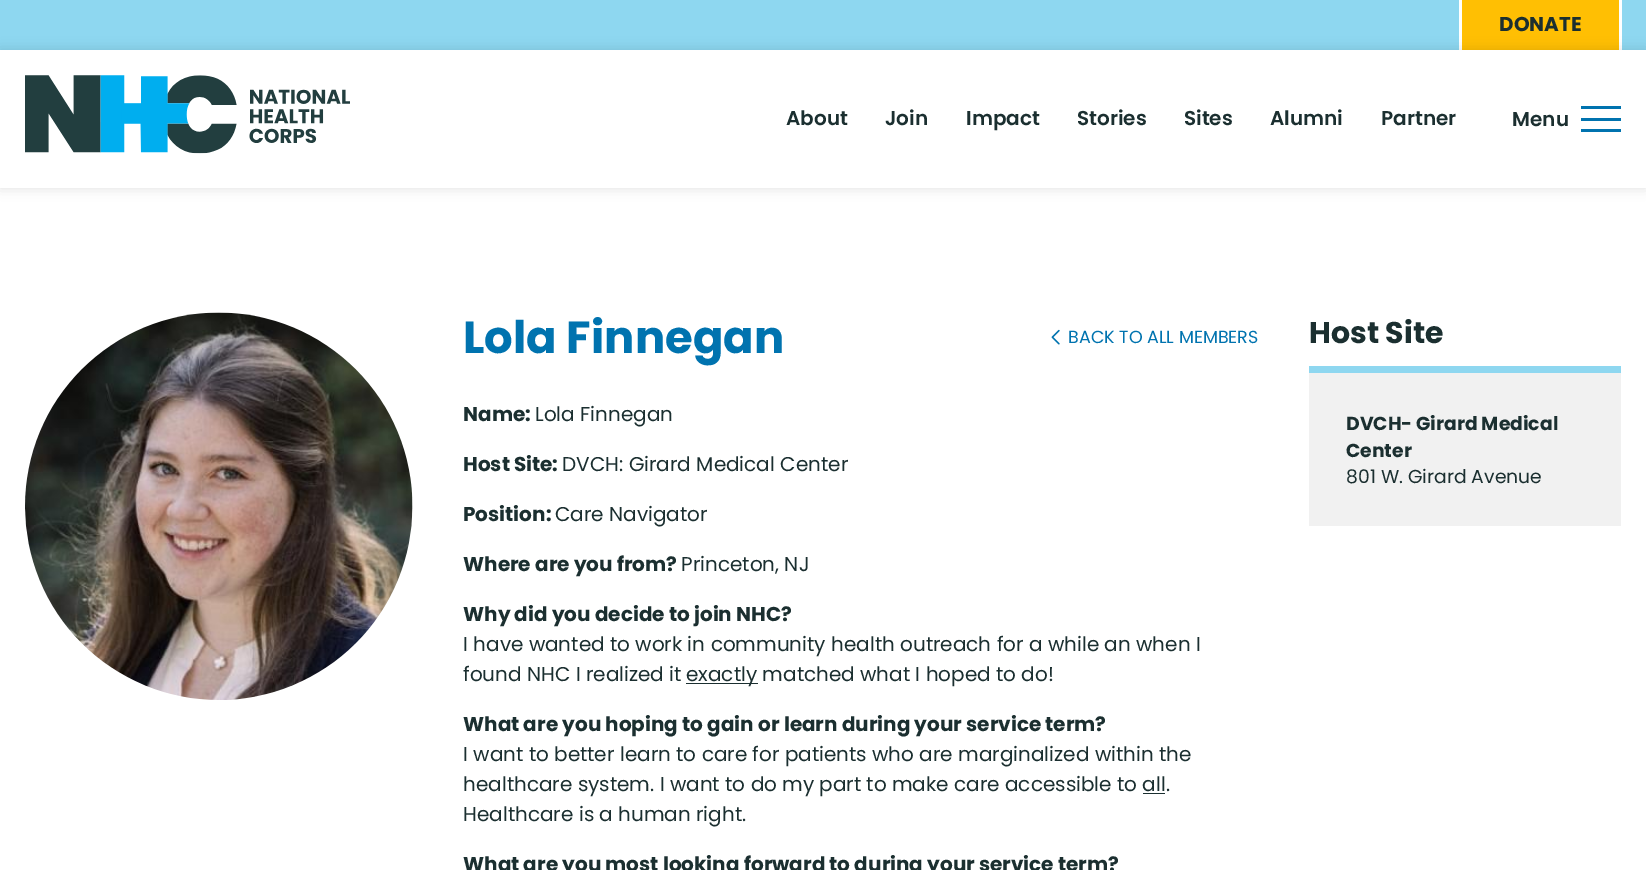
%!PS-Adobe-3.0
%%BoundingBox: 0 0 1646 870
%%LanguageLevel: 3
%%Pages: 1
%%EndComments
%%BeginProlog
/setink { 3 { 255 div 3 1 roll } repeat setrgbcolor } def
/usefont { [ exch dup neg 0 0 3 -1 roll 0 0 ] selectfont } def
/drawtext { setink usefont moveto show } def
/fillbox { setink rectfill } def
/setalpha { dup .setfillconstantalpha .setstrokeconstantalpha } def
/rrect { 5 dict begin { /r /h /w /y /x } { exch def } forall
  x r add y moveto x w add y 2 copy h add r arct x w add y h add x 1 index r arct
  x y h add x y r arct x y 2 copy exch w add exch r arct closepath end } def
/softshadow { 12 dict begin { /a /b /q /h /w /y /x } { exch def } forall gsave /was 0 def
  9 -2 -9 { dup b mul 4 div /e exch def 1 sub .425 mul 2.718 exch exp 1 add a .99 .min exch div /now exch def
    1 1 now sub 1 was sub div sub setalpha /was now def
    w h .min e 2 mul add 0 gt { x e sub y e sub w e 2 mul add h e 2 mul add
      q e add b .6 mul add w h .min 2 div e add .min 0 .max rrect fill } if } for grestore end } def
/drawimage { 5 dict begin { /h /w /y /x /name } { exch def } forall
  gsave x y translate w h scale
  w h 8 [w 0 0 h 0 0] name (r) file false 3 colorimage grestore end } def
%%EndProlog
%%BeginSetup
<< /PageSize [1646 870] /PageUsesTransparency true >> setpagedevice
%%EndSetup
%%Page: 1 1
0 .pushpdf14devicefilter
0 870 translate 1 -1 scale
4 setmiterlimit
0 0 1646 870 255 255 255 fillbox
0 0 1646 50 142 215 240 fillbox
1462 0 157 50 255 191 3 fillbox
1619 0 3 50 255 255 255 fillbox
1459 0 3 50 255 255 255 fillbox
(DONATE) 1499 31 /Poppins-Bold 20 27 47 48 drawtext
0 0 0 setink
0 50 1646 138 0 6 0.12 softshadow
0 50 1646 138 255 255 255 fillbox
(assets/img1.rgb) 25 75 325 79 drawimage
(About) 786 125 /Poppins-SemiBold 20 27 47 48 drawtext
(Join) 885 125 /Poppins-SemiBold 20 27 47 48 drawtext
(Impact) 966 125 /Poppins-SemiBold 20 27 47 48 drawtext
(Stories) 1077 125 /Poppins-SemiBold 20 27 47 48 drawtext
(Sites) 1184 125 /Poppins-SemiBold 20 27 47 48 drawtext
(Alumni) 1270 125 /Poppins-SemiBold 20 27 47 48 drawtext
(Partner) 1381 125 /Poppins-SemiBold 20 27 47 48 drawtext
(Menu) 1512 126 /Poppins-SemiBold 20 27 47 48 drawtext
1581 106 40 3 0 115 175 fillbox
1581 118 40 3 0 115 175 fillbox
1581 129 40 3 0 115 175 fillbox
(assets/img2.rgb) 25 312 388 388 drawimage
(Lola Finnegan) 463 353 /Poppins-Bold 45 0 115 175 drawtext
(assets/img3.rgb) 1051 329 9 16 drawimage
(BACK TO ALL MEMBERS) 1068 343 /Poppins-Regular 17.5 0 115 175 drawtext
(Name:) 463 421 /Poppins-Bold 20 27 47 48 drawtext
(Lola Finnegan) 535 421 /Poppins-Regular 20 27 47 48 drawtext
(Host Site:) 463 471 /Poppins-Bold 20 27 47 48 drawtext
(DVCH: Girard Medical Center) 562 471 /Poppins-Regular 20 27 47 48 drawtext
(Position:) 463 521 /Poppins-Bold 20 27 47 48 drawtext
(Care Navigator) 555 521 /Poppins-Regular 20 27 47 48 drawtext
(Where are you from?) 463 571 /Poppins-Bold 20 27 47 48 drawtext
(Princeton, NJ) 681 571 /Poppins-Regular 20 27 47 48 drawtext
(Why did you decide to join NHC?) 463 621 /Poppins-Bold 20 27 47 48 drawtext
(I have wanted to work in community health outreach for a while an when I) 463 651 /Poppins-Regular 20 27 47 48 drawtext
(found NHC I realized it) 463 681 /Poppins-Regular 20 27 47 48 drawtext
686 683 72 1 27 47 48 fillbox
(exactly matched what I hoped to do!) 686 681 /Poppins-Regular 20 27 47 48 drawtext
(What are you hoping to gain or learn during your service term?) 463 731 /Poppins-Bold 20 27 47 48 drawtext
(I want to better learn to care for patients who are marginalized within the) 463 761 /Poppins-Regular 20 27 47 48 drawtext
(healthcare system. I want to do my part to make care accessible to all.) 463 791 /Poppins-Regular 20 27 47 48 drawtext
1143 793 22 1 27 47 48 fillbox
(Healthcare is a human right.) 463 821 /Poppins-Regular 20 27 47 48 drawtext
(What are you most looking forward to during your service term?) 463 871 /Poppins-Bold 20 27 47 48 drawtext
(Host Site) 1309 343 /Poppins-Bold 30 27 47 48 drawtext
1309 373 312 153 241 241 241 fillbox
1309 366 312 7 142 215 240 fillbox
(DVCH- Girard Medical) 1346 430 /Poppins-Bold 18.75 27 47 48 drawtext
(Center) 1346 457 /Poppins-Bold 18.75 27 47 48 drawtext
(801 W. Girard Avenue) 1346 483 /Poppins-Regular 18.75 27 47 48 drawtext
.poppdf14devicefilter showpage
%%EOF
